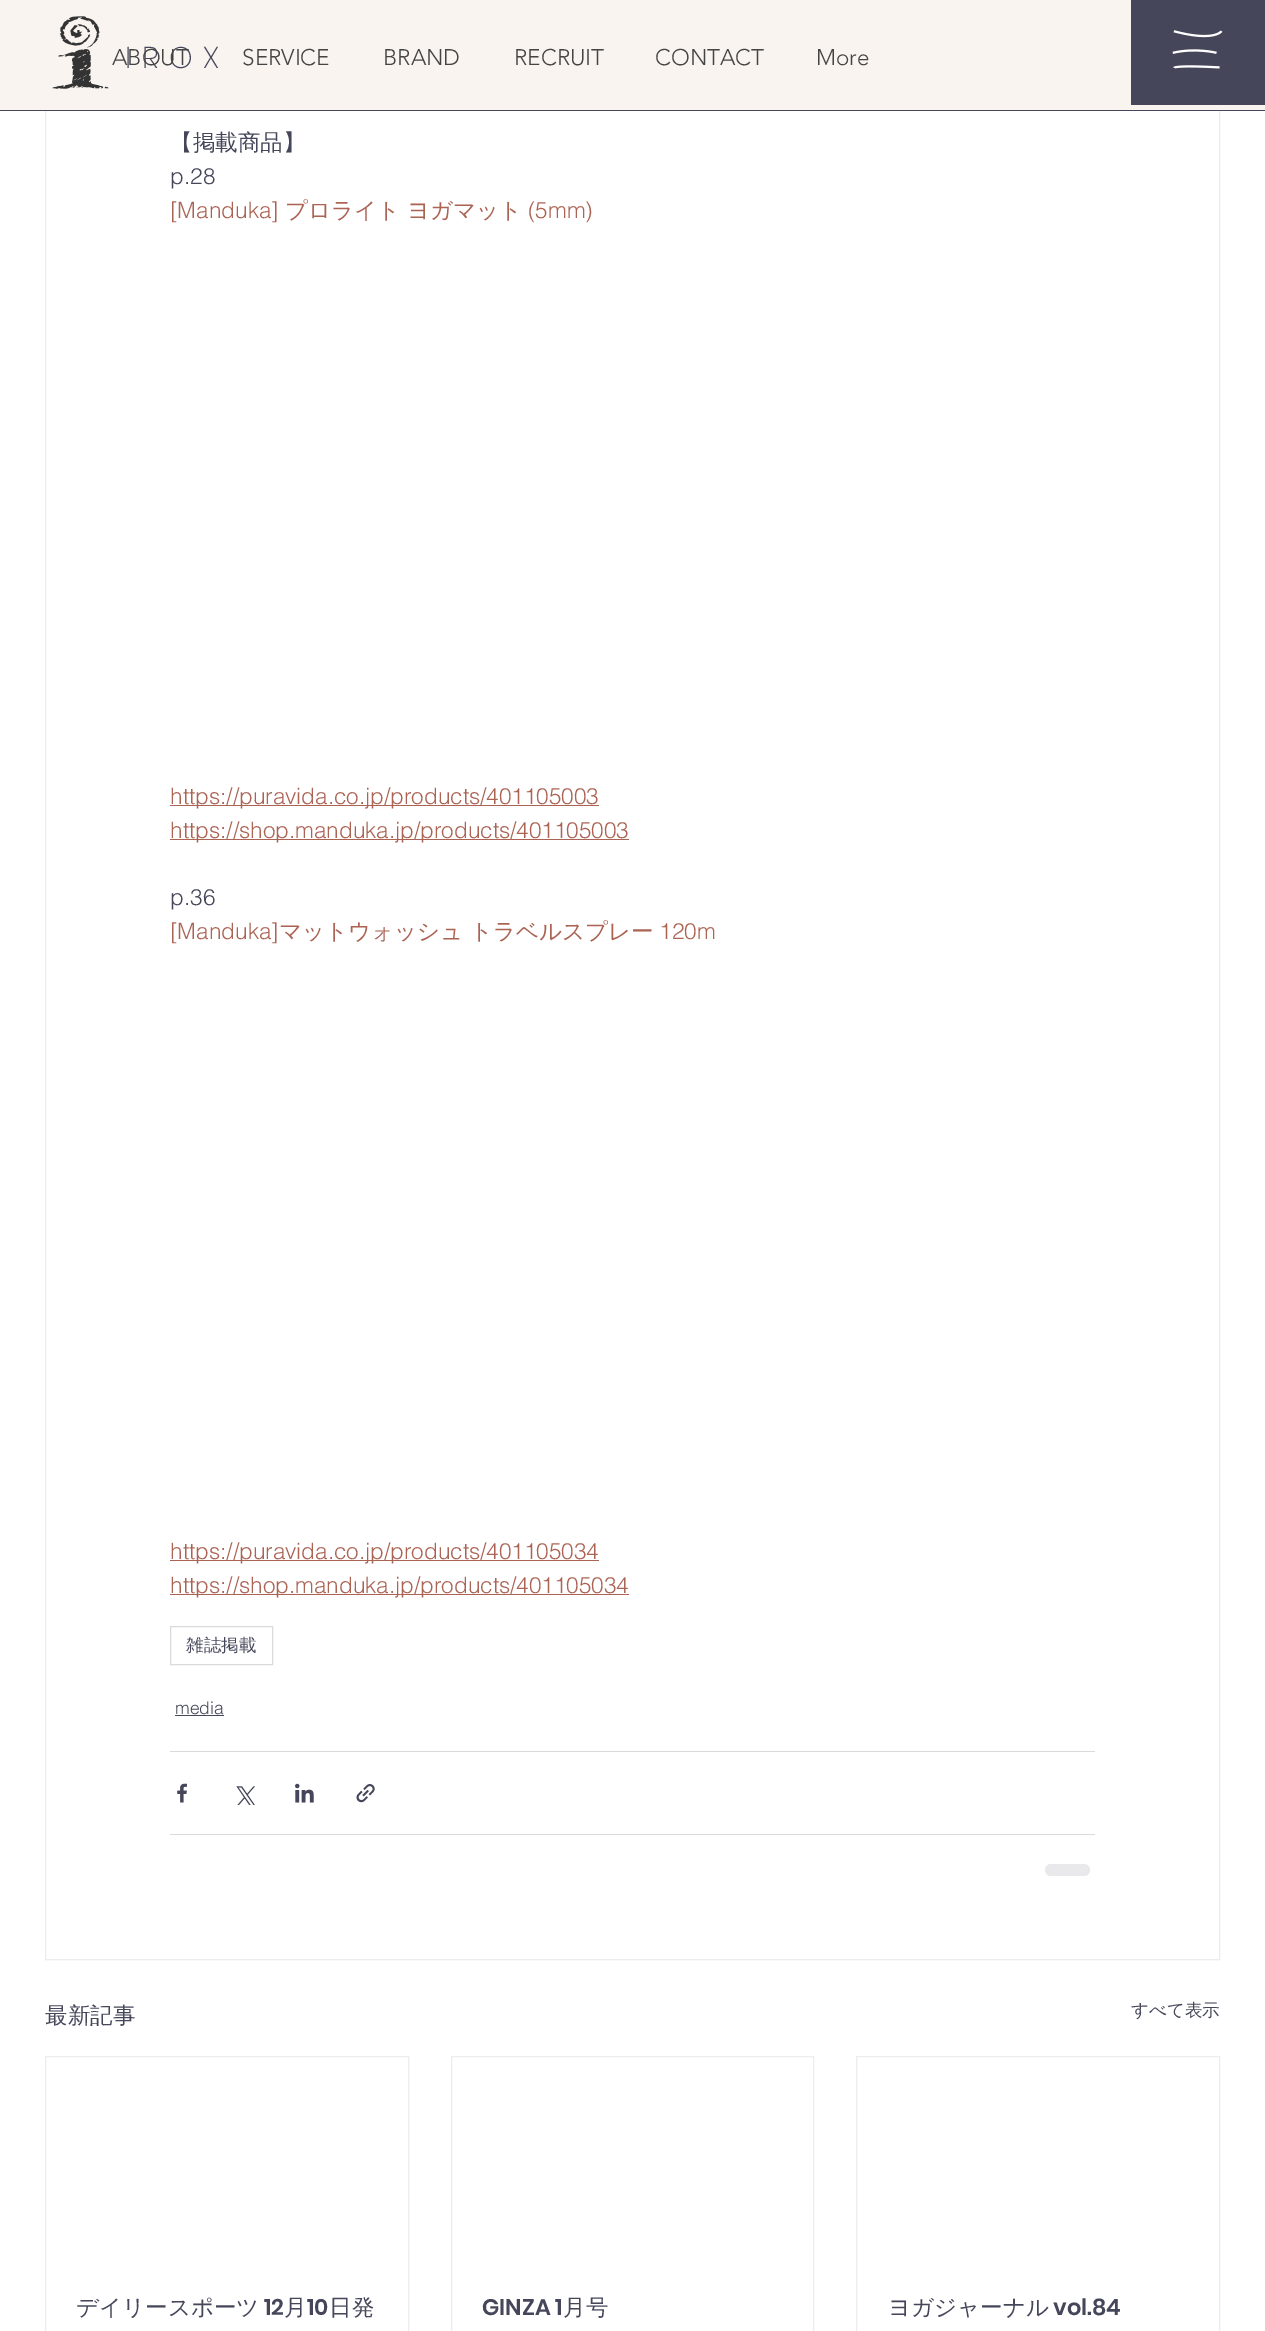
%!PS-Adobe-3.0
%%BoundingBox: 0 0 1265 2331
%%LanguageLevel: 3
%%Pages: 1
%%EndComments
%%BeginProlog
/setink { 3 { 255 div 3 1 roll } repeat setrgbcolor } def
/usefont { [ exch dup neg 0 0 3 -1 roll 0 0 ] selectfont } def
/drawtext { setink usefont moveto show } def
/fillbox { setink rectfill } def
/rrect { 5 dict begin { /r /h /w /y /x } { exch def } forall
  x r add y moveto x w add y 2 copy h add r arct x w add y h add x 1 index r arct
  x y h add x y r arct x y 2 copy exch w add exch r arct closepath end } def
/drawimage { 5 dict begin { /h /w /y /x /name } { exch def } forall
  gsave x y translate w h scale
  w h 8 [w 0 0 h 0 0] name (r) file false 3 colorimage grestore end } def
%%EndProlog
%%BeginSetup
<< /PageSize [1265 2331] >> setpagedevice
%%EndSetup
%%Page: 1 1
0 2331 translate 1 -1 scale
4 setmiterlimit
0 0 1265 2331 255 255 255 fillbox
238 236 236 setink
45.5 -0.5 1174 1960 rectstroke
0 0 1265 110 250 244 240 fillbox
(assets/img1.rgb) 52 16 57 73 drawimage
/Poppins-ExtraLight 30 usefont
69 70 89 setink
125 68 moveto 10.5 0 (IROX) ashow
1131 0 134 105 69 70 89 fillbox
(assets/img2.rgb) 1172 30 51 39 drawimage
(ABOUT) 112 65 /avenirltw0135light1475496-Light 22.5 68 68 68 drawtext
(SERVICE) 242 65 /avenirltw0135light1475496-Light 22.5 68 68 68 drawtext
(BRAND) 383 65 /avenirltw0135light1475496-Light 22.5 68 68 68 drawtext
(RECRUIT) 514 65 /avenirltw0135light1475496-Light 22.5 68 68 68 drawtext
(CONTACT) 655 65 /avenirltw0135light1475496-Light 22.5 68 68 68 drawtext
(More) 816 65 /avenirltw0135light1475496-Light 22.5 68 68 68 drawtext
0 110 1265 1 69 70 89 fillbox
(【掲載商品】) 170 150 /WenQuanYiZenHei-Medium 22.5 69 70 89 drawtext
(p.28) 170 184 /helvetica-Light 22.5 69 70 89 drawtext
([Manduka]) 170 218 /helvetica-Light 22.5 171 99 84 drawtext
(プロライト ヨガマット) 285 218 /WenQuanYiZenHei-Medium 22.5 171 99 84 drawtext
(\(5mm\)) 528 218 /helvetica-Light 22.5 171 99 84 drawtext
170 805 429 1 171 99 84 fillbox
(https://puravida.co.jp/products/401105003) 170 804 /helvetica-Light 22.5 171 99 84 drawtext
170 839 459 1 171 99 84 fillbox
(https://shop.manduka.jp/products/401105003) 170 838 /helvetica-Light 22.5 171 99 84 drawtext
(p.36) 170 905 /helvetica-Light 22.5 69 70 89 drawtext
([Manduka]) 170 939 /helvetica-Light 22.5 171 99 84 drawtext
(マットウォッシュ トラベルスプレー) 279 939 /WenQuanYiZenHei-Medium 22.5 171 99 84 drawtext
(120m) 659 939 /helvetica-Light 22.5 171 99 84 drawtext
170 1560 429 1 171 99 84 fillbox
(https://puravida.co.jp/products/401105034) 170 1559 /helvetica-Light 22.5 171 99 84 drawtext
170 1594 459 1 171 99 84 fillbox
(https://shop.manduka.jp/products/401105034) 170 1593 /helvetica-Light 22.5 171 99 84 drawtext
218 218 222 setink
170.5 1626.5 102 38 rectstroke
(雑誌掲載) 186 1651 /WenQuanYiZenHei-Medium 17.5 69 70 89 drawtext
(media) 175 1714 /helvetica-Light 17.5 69 70 89 drawtext
175 1715 49 1 69 70 89 fillbox
170 1751 925 1 218 218 222 fillbox
(assets/img3.rgb) 177 1783 10 20 drawimage
(assets/img4.rgb) 236 1786 19 19 drawimage
(assets/img5.rgb) 295 1783 19 20 drawimage
(assets/img6.rgb) 356 1784 19 19 drawimage
170 1834 925 1 218 218 222 fillbox
233 233 235 setink
1045 1864 45 12 6 rrect fill
(最新記事) 45 2023 /WenQuanYiZenHei-Medium 22.5 69 70 89 drawtext
(すべて表示) 1131 2016 /WenQuanYiZenHei-Medium 17.5 69 70 89 drawtext
238 236 236 setink
45.5 2056.5 363 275 rectstroke
(デイリースポーツ) 76 2315 /WenQuanYiZenHei-Medium 22.5 69 70 89 drawtext
(12) 264 2315 /Poppins-SemiBold 22.5 69 70 89 drawtext
(月) 284 2315 /WenQuanYiZenHei-Medium 22.5 69 70 89 drawtext
(10) 307 2315 /Poppins-SemiBold 22.5 69 70 89 drawtext
(日発) 329 2315 /WenQuanYiZenHei-Medium 22.5 69 70 89 drawtext
238 236 236 setink
451.5 2056.5 362 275 rectstroke
(GINZA 1) 482 2315 /Poppins-SemiBold 22.5 69 70 89 drawtext
(月号) 563 2315 /WenQuanYiZenHei-Medium 22.5 69 70 89 drawtext
238 236 236 setink
856.5 2056.5 363 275 rectstroke
(ヨガジャーナル) 888 2315 /WenQuanYiZenHei-Medium 22.5 69 70 89 drawtext
(vol.84) 1053 2315 /Poppins-SemiBold 22.5 69 70 89 drawtext
showpage
%%EOF
